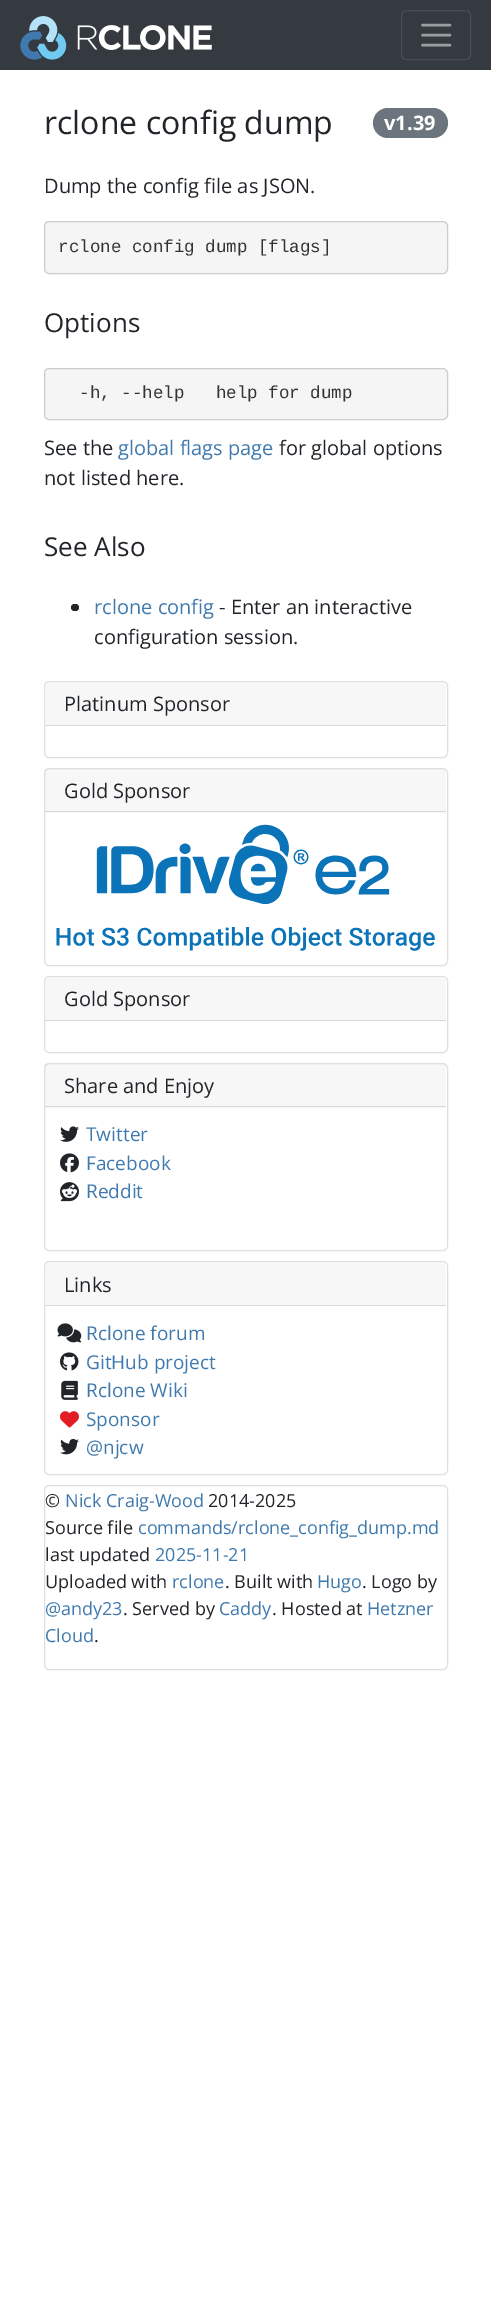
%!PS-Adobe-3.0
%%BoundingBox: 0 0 491 2298
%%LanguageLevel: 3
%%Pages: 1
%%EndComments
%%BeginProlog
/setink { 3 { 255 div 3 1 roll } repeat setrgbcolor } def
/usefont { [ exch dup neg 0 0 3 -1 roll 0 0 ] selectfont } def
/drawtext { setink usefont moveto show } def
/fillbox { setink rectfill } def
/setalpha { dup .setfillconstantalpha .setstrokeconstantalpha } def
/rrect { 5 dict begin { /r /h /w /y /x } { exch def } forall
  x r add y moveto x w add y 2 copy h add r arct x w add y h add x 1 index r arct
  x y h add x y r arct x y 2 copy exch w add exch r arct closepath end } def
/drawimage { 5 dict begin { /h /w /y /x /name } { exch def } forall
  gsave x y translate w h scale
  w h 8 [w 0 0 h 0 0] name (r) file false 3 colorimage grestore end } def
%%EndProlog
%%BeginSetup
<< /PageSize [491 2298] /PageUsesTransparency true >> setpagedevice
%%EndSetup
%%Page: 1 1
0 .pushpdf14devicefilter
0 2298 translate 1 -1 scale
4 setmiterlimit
0 0 491 2298 255 255 255 fillbox
0 0 491 70 52 58 64 fillbox
(assets/img1.rgb) 20 16 192 44 drawimage
72 78 83 setink
401.5 10.5 69 49 4.5 rrect stroke
154 157 160 setink
2.5 setlinewidth
1 setlinecap
422.5 25 moveto 450 25 lineto 422.5 35 moveto 450 35 lineto 422.5 45 moveto 450 45 lineto stroke
(rclone config dump) 44 134 /OpenSans-Regular 32 33 37 41 drawtext
108 117 125 setink
373 108 75 30 15 rrect fill
(v1.39) 384 130 /OpenSans-Bold 20 255 255 255 drawtext
(Dump the config file as JSON.) 44 193 /OpenSans-Regular 20 33 37 41 drawtext
245 245 245 setink
44.5 221.5 403 52 4.5 rrect gsave fill grestore
204 204 204 setink
1 setlinewidth
0 setlinecap
stroke
(rclone config dump [flags]) 58 252 /LiberationMono-Regular 17.5 51 51 51 drawtext
(Options) 44 332 /OpenSans-Regular 26 33 37 41 drawtext
245 245 245 setink
44.5 368.5 403 51 4.5 rrect gsave fill grestore
204 204 204 setink
stroke
(-h, --help   help for dump) 79 398 /LiberationMono-Regular 17.5 51 51 51 drawtext
(See the) 44 455 /OpenSans-Regular 20 33 37 41 drawtext
(global flags page) 118 455 /OpenSans-Regular 20 63 121 173 drawtext
(for global options) 279 455 /OpenSans-Regular 20 33 37 41 drawtext
(not listed here.) 44 485 /OpenSans-Regular 20 33 37 41 drawtext
(See Also) 44 556 /OpenSans-Regular 26 33 37 41 drawtext
71 604 8 7 3.5 rrect fill
(rclone config) 94 614 /OpenSans-Regular 20 63 121 173 drawtext
(- Enter an interactive) 219 614 /OpenSans-Regular 20 33 37 41 drawtext
(configuration session.) 94 644 /OpenSans-Regular 20 33 37 41 drawtext
223 223 223 setink
44.5 681.5 403 76 4.5 rrect stroke
247 247 247 setink
49 683 moveto 442 683 lineto 444 683 446 685 446 687 curveto 446 726 lineto 45 726 lineto 45 687 lineto 45 685 47 683 49 683 curveto closepath fill
45 725 401 1 216 216 216 fillbox
(Platinum Sponsor) 64 711 /OpenSans-Regular 20 33 37 41 drawtext
223 223 223 setink
44.5 768.5 403 197 4.5 rrect stroke
0.03 setalpha
45 769 401 44 0 0 0 fillbox
1 setalpha
45 811 401 1 216 216 216 fillbox
(Gold Sponsor) 64 798 /OpenSans-Regular 20 33 37 41 drawtext
(assets/img2.rgb) 56 824 379 127 drawimage
223 223 223 setink
44.5 976.5 403 76 4.5 rrect stroke
247 247 247 setink
49 978 moveto 442 978 lineto 444 978 446 980 446 982 curveto 446 1021 lineto 45 1021 lineto 45 982 lineto 45 980 47 978 49 978 curveto closepath fill
45 1020 401 1 216 216 216 fillbox
(Gold Sponsor) 64 1006 /OpenSans-Regular 20 33 37 41 drawtext
223 223 223 setink
44.5 1063.5 403 187 4.5 rrect stroke
0.03 setalpha
45 1064 401 44 0 0 0 fillbox
1 setalpha
45 1106 401 1 216 216 216 fillbox
(Share and Enjoy) 64 1093 /OpenSans-Regular 20 33 37 41 drawtext
(assets/img3.rgb) 60 1126 19 16 drawimage
(Twitter) 86 1141 /OpenSans-Regular 19 63 121 173 drawtext
(assets/img4.rgb) 60 1153 19 20 drawimage
(Facebook) 86 1170 /OpenSans-Regular 19 63 121 173 drawtext
(assets/img5.rgb) 60 1182 19 20 drawimage
(Reddit) 86 1198 /OpenSans-Regular 19 63 121 173 drawtext
223 223 223 setink
44.5 1261.5 403 213 4.5 rrect stroke
247 247 247 setink
49 1263 moveto 442 1263 lineto 444 1263 446 1265 446 1267 curveto 446 1306 lineto 45 1306 lineto 45 1267 lineto 45 1265 47 1263 49 1263 curveto closepath fill
45 1305 401 1 216 216 216 fillbox
(Links) 64 1292 /OpenSans-Regular 20 33 37 41 drawtext
(assets/img6.rgb) 57 1323 25 20 drawimage
(Rclone forum) 86 1340 /OpenSans-Regular 19 63 121 173 drawtext
(assets/img7.rgb) 60 1352 19 19 drawimage
(GitHub project) 86 1369 /OpenSans-Regular 19 63 121 173 drawtext
(assets/img8.rgb) 61 1380 17 20 drawimage
(Rclone Wiki) 86 1397 /OpenSans-Regular 19 63 121 173 drawtext
(assets/img9.rgb) 60 1411 19 17 drawimage
(Sponsor) 86 1426 /OpenSans-Regular 19 63 121 173 drawtext
(assets/img10.rgb) 60 1438 19 17 drawimage
(@njcw) 86 1454 /OpenSans-Regular 19 63 121 173 drawtext
223 223 223 setink
44.5 1485.5 403 184 4.5 rrect stroke
(©) 45 1507 /OpenSans-Regular 18 33 37 41 drawtext
(Nick Craig-Wood) 65 1507 /OpenSans-Regular 18 63 121 173 drawtext
(2014-2025) 208 1507 /OpenSans-Regular 18 33 37 41 drawtext
(Source file) 45 1534 /OpenSans-Regular 18 33 37 41 drawtext
(commands/rclone_config_dump.md) 138 1534 /OpenSans-Regular 18 63 121 173 drawtext
(last updated) 45 1561 /OpenSans-Regular 18 33 37 41 drawtext
(2025-11-21) 155 1561 /OpenSans-Regular 18 63 121 173 drawtext
(Uploaded with) 45 1588 /OpenSans-Regular 18 33 37 41 drawtext
(rclone) 172 1588 /OpenSans-Regular 18 63 121 173 drawtext
(. Built with) 225 1588 /OpenSans-Regular 18 33 37 41 drawtext
(Hugo) 317 1588 /OpenSans-Regular 18 63 121 173 drawtext
(. Logo by) 362 1588 /OpenSans-Regular 18 33 37 41 drawtext
(@andy23) 45 1615 /OpenSans-Regular 18 63 121 173 drawtext
(. Served by) 123 1615 /OpenSans-Regular 18 33 37 41 drawtext
(Caddy) 219 1615 /OpenSans-Regular 18 63 121 173 drawtext
(. Hosted at) 272 1615 /OpenSans-Regular 18 33 37 41 drawtext
(Hetzner) 367 1615 /OpenSans-Regular 18 63 121 173 drawtext
(Cloud) 45 1642 /OpenSans-Regular 18 63 121 173 drawtext
(.) 94 1642 /OpenSans-Regular 18 33 37 41 drawtext
.poppdf14devicefilter showpage
%%EOF
